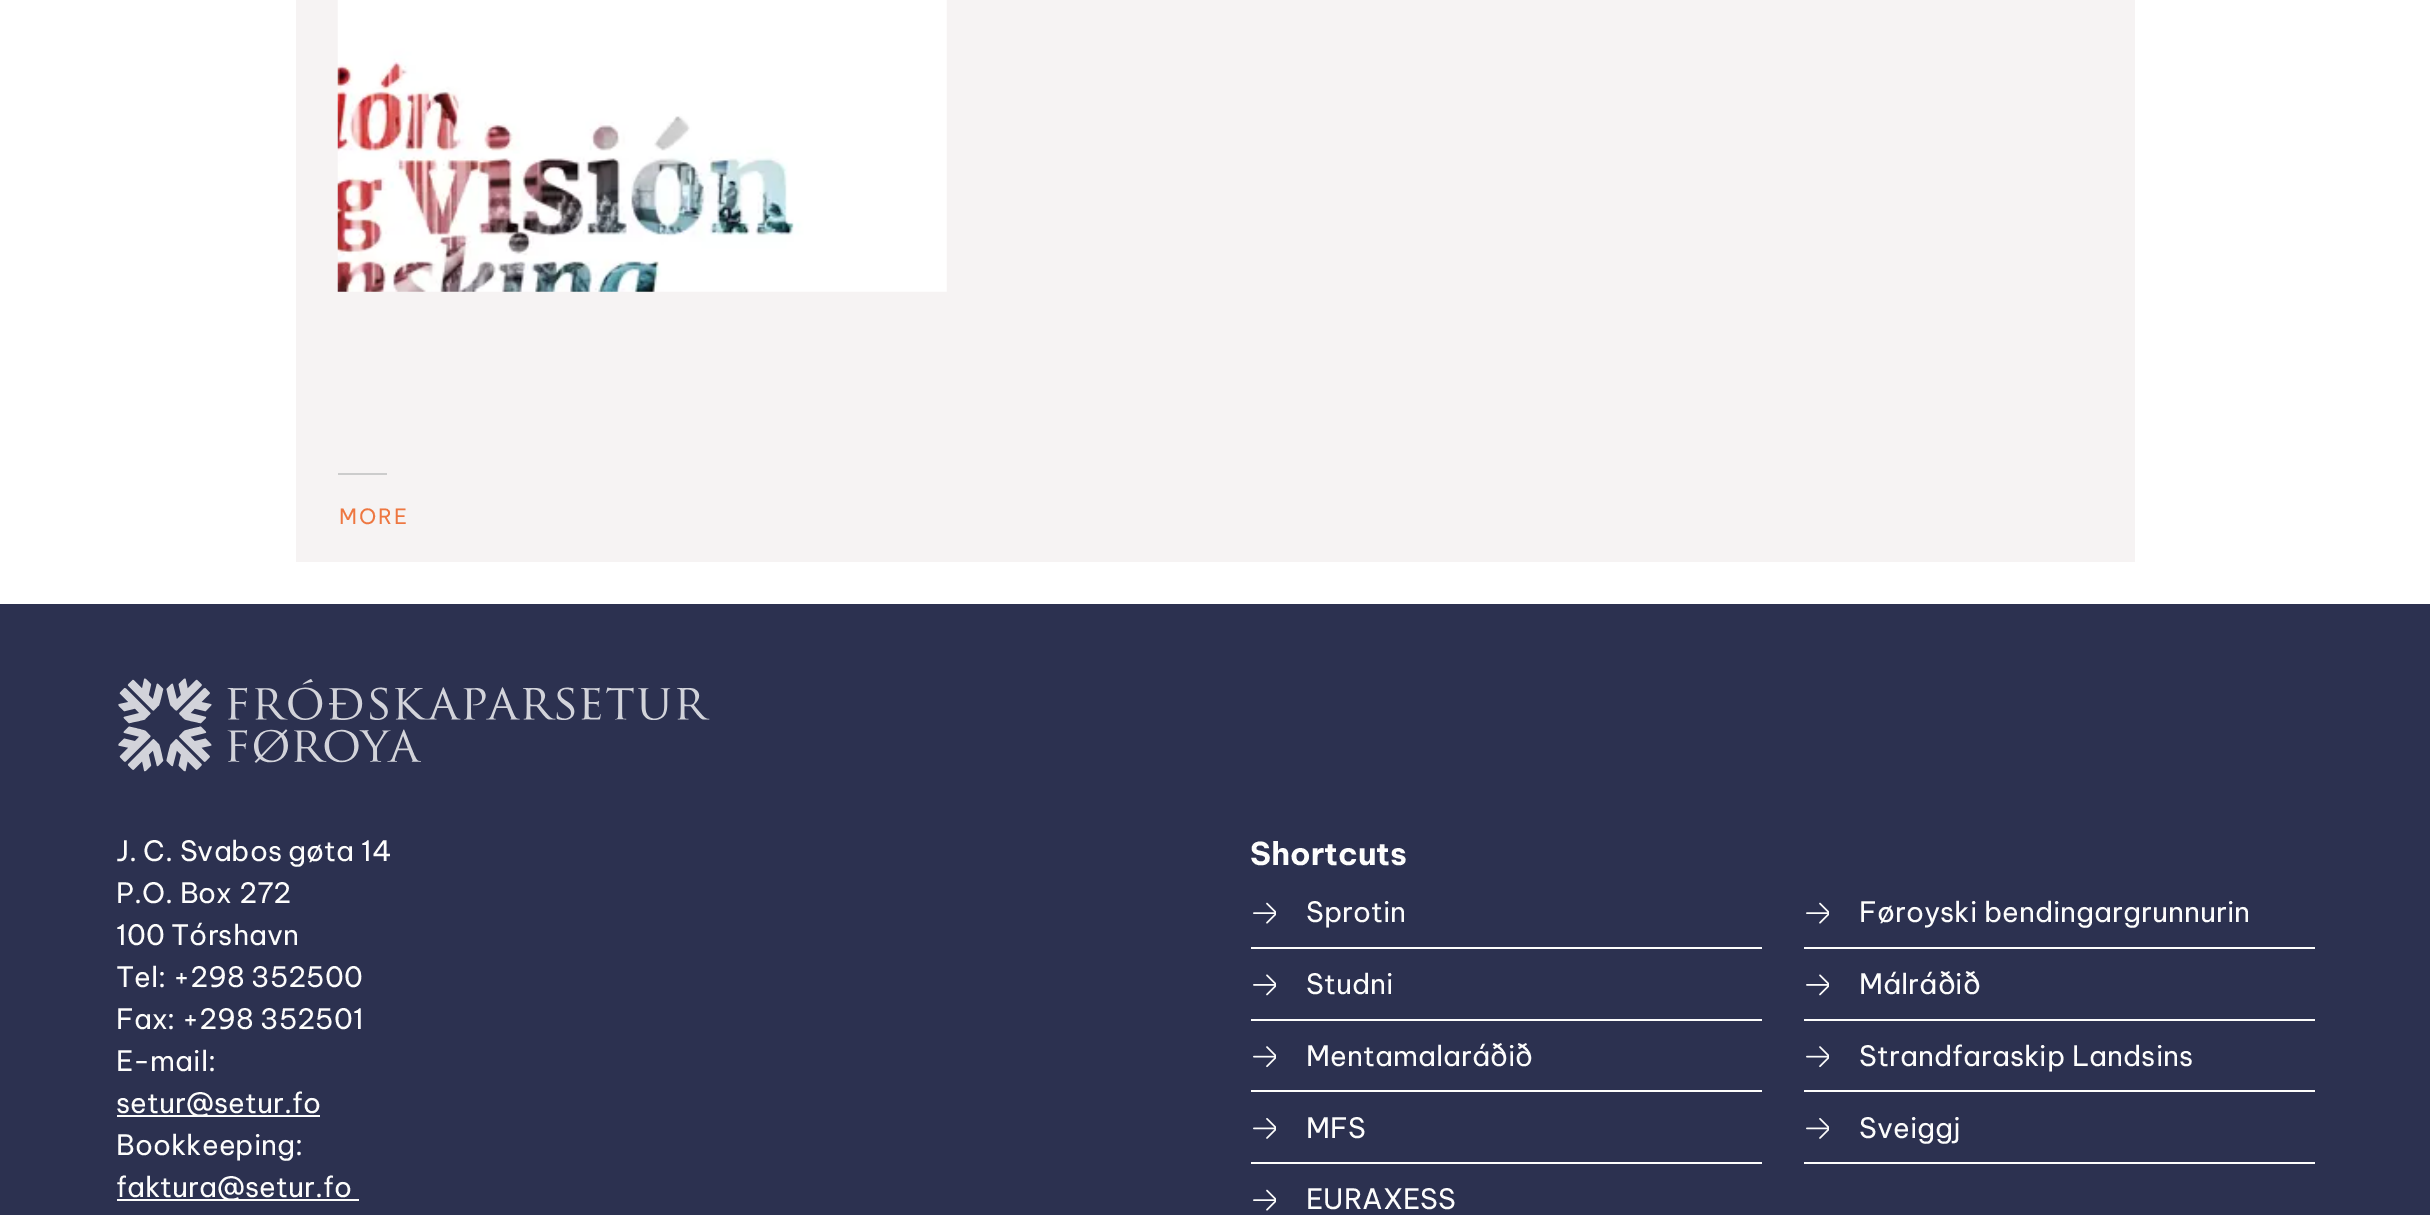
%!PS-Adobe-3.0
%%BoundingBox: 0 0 2430 1215
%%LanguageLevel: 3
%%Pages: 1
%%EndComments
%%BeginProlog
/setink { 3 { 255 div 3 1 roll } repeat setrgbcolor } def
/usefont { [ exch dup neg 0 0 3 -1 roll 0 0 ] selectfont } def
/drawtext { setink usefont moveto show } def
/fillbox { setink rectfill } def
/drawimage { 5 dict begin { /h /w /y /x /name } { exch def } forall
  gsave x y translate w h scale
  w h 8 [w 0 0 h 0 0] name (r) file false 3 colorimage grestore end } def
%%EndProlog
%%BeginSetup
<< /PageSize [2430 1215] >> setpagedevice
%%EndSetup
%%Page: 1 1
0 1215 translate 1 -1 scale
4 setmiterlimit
0 0 2430 1215 255 255 255 fillbox
296 0 1839 562 246 243 243 fillbox
(assets/img1.rgb) 337 0 610 292 drawimage
338 473 49 2 204 204 204 fillbox
/BeVietnamPro-Regular 21 usefont
238 119 65 setink
339 524 moveto 2 0 (MORE) ashow
0 604 2430 611 44 49 80 fillbox
(assets/img2.rgb) 118 678 592 94 drawimage
(J. C. Svabos gøta 14) 116 861 /BeVietnamPro-Regular 28 253 253 252 drawtext
(P.O. Box 272) 116 903 /BeVietnamPro-Regular 28 253 253 252 drawtext
(100 Tórshavn) 116 945 /BeVietnamPro-Regular 28 253 253 252 drawtext
(Tel: +298 352500) 116 987 /BeVietnamPro-Regular 28 253 253 252 drawtext
(Fax: +298 352501) 116 1029 /BeVietnamPro-Regular 28 253 253 252 drawtext
(E-mail:) 116 1071 /BeVietnamPro-Regular 28 253 253 252 drawtext
117 1115 203 2 253 253 252 fillbox
(setur@setur.fo) 116 1113 /BeVietnamPro-Regular 28 253 253 252 drawtext
(Bookkeeping:) 116 1155 /BeVietnamPro-Regular 28 253 253 252 drawtext
117 1199 242 2 253 253 252 fillbox
(faktura@setur.fo) 116 1197 /BeVietnamPro-Regular 28 253 253 252 drawtext
(Shortcuts) 1250 865 /BeVietnamPro-Bold 31.5 253 253 252 drawtext
1251 947 511 2 253 253 252 fillbox
(assets/img3.rgb) 1253 902 23 22 drawimage
(Sprotin) 1306 922 /BeVietnamPro-Regular 28 253 253 252 drawtext
1804 947 511 2 253 253 252 fillbox
(assets/img3.rgb) 1806 902 23 22 drawimage
(Føroyski bendingargrunnurin) 1859 922 /BeVietnamPro-Regular 28 253 253 252 drawtext
1251 1019 511 2 253 253 252 fillbox
(assets/img4.rgb) 1253 974 23 22 drawimage
(Studni) 1306 994 /BeVietnamPro-Regular 28 253 253 252 drawtext
1804 1019 511 2 253 253 252 fillbox
(assets/img4.rgb) 1806 974 23 22 drawimage
(Málráðið) 1859 994 /BeVietnamPro-Regular 28 253 253 252 drawtext
1251 1090 511 2 253 253 252 fillbox
(assets/img5.rgb) 1253 1046 23 22 drawimage
(Mentamalaráðið) 1306 1066 /BeVietnamPro-Regular 28 253 253 252 drawtext
1804 1090 511 2 253 253 252 fillbox
(assets/img5.rgb) 1806 1046 23 22 drawimage
(Strandfaraskip Landsins) 1859 1066 /BeVietnamPro-Regular 28 253 253 252 drawtext
1251 1162 511 2 253 253 252 fillbox
(assets/img6.rgb) 1253 1118 23 21 drawimage
(MFS) 1306 1138 /BeVietnamPro-Regular 28 253 253 252 drawtext
1804 1162 511 2 253 253 252 fillbox
(assets/img6.rgb) 1806 1118 23 21 drawimage
(Sveiggj) 1859 1138 /BeVietnamPro-Regular 28 253 253 252 drawtext
(assets/img3.rgb) 1253 1189 23 22 drawimage
(EURAXESS) 1306 1209 /BeVietnamPro-Regular 28 253 253 252 drawtext
showpage
%%EOF
